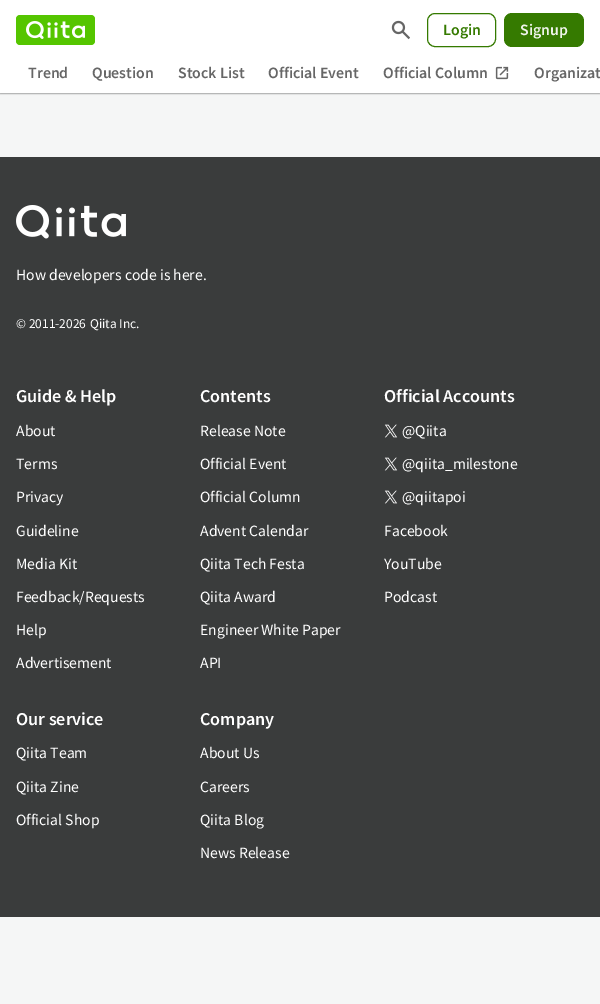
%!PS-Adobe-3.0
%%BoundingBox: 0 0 600 1004
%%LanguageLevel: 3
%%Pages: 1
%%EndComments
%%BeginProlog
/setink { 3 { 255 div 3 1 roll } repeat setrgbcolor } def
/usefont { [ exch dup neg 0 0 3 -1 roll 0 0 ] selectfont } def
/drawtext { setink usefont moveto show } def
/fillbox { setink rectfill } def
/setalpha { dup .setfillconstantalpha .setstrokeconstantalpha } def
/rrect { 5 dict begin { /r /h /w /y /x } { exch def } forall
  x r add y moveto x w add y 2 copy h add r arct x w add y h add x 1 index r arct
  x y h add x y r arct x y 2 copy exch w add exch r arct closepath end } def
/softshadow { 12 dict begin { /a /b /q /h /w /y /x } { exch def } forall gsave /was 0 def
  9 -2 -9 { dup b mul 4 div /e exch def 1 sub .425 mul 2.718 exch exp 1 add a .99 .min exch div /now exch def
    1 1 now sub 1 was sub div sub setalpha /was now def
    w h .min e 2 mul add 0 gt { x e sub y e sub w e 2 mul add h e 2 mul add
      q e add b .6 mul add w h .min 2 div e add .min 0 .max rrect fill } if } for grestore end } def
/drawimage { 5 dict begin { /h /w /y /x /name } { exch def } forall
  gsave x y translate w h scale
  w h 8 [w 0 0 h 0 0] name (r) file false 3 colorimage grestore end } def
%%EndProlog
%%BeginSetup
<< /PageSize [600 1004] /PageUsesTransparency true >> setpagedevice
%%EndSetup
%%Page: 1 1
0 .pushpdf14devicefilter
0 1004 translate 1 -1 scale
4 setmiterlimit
0 0 600 1004 245 246 246 fillbox
225 226 226 setink
-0.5 -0.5 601 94 rectstroke
30 33 33 setink
0 1 600 93 0 0.5 0.25 softshadow
0 0 600 93 255 255 255 fillbox
85 197 0 setink
16 15 79 30 4 rrect fill
(assets/img1.rgb) 26 21 59 18 drawimage
(assets/img2.rgb) 391 20 19 20 drawimage
53 122 0 setink
427.5 13.5 68 33 7.5 rrect stroke
(Login) 443 35 /NotoSansJP-SemiBold 14 53 122 0 drawtext
504 13 80 34 8 rrect fill
(Signup) 520 35 /NotoSansJP-SemiBold 14 239 244 235 drawtext
(Trend) 28 78 /NotoSansJP-SemiBold 14 102 102 102 drawtext
(Question) 92 78 /NotoSansJP-SemiBold 14 102 102 102 drawtext
(Stock List) 178 78 /NotoSansJP-SemiBold 14 102 102 102 drawtext
(Official Event) 268 78 /NotoSansJP-SemiBold 14 102 102 102 drawtext
(Official Column) 383 78 /NotoSansJP-SemiBold 14 102 102 102 drawtext
(assets/img3.rgb) 495 66 14 14 drawimage
(Organizat) 534 78 /NotoSansJP-SemiBold 14 102 102 102 drawtext
0 157 600 760 58 60 60 fillbox
(assets/img4.rgb) 16 205 110 34 drawimage
(How developers code is here.) 16 280 /NotoSansJP-Regular 14 255 255 255 drawtext
(© 2011-2026) 16 328 /NotoSansJP-Regular 12 255 255 255 drawtext
(Qiita Inc.) 90 328 /NotoSansJP-Regular 12 255 255 255 drawtext
(Guide & Help) 16 402 /NotoSansJP-SemiBold 16 255 255 255 drawtext
(About) 16 436 /NotoSansJP-Regular 14 255 255 255 drawtext
(Terms) 16 469 /NotoSansJP-Regular 14 255 255 255 drawtext
(Privacy) 16 502 /NotoSansJP-Regular 14 255 255 255 drawtext
(Guideline) 16 536 /NotoSansJP-Regular 14 255 255 255 drawtext
(Media Kit) 16 569 /NotoSansJP-Regular 14 255 255 255 drawtext
(Feedback/Requests) 16 602 /NotoSansJP-Regular 14 255 255 255 drawtext
(Help) 16 635 /NotoSansJP-Regular 14 255 255 255 drawtext
(Advertisement) 16 668 /NotoSansJP-Regular 14 255 255 255 drawtext
(Contents) 200 402 /NotoSansJP-SemiBold 16 255 255 255 drawtext
(Release Note) 200 436 /NotoSansJP-Regular 14 255 255 255 drawtext
(Official Event) 200 469 /NotoSansJP-Regular 14 255 255 255 drawtext
(Official Column) 200 502 /NotoSansJP-Regular 14 255 255 255 drawtext
(Advent Calendar) 200 536 /NotoSansJP-Regular 14 255 255 255 drawtext
(Qiita Tech Festa) 200 569 /NotoSansJP-Regular 14 255 255 255 drawtext
(Qiita Award) 200 602 /NotoSansJP-Regular 14 255 255 255 drawtext
(Engineer White Paper) 200 635 /NotoSansJP-Regular 14 255 255 255 drawtext
(API) 200 668 /NotoSansJP-Regular 14 255 255 255 drawtext
(Official Accounts) 384 402 /NotoSansJP-SemiBold 16 255 255 255 drawtext
(assets/img5.rgb) 384 424 14 14 drawimage
(@Qiita) 402 436 /NotoSansJP-Regular 14 255 255 255 drawtext
(assets/img5.rgb) 384 457 14 14 drawimage
(@qiita_milestone) 402 469 /NotoSansJP-Regular 14 255 255 255 drawtext
(assets/img5.rgb) 384 490 14 14 drawimage
(@qiitapoi) 402 502 /NotoSansJP-Regular 14 255 255 255 drawtext
(Facebook) 384 536 /NotoSansJP-Regular 14 255 255 255 drawtext
(YouTube) 384 569 /NotoSansJP-Regular 14 255 255 255 drawtext
(Podcast) 384 602 /NotoSansJP-Regular 14 255 255 255 drawtext
(Our service) 16 725 /NotoSansJP-SemiBold 16 255 255 255 drawtext
(Qiita Team) 16 758 /NotoSansJP-Regular 14 255 255 255 drawtext
(Qiita Zine) 16 792 /NotoSansJP-Regular 14 255 255 255 drawtext
(Official Shop) 16 825 /NotoSansJP-Regular 14 255 255 255 drawtext
(Company) 200 725 /NotoSansJP-SemiBold 16 255 255 255 drawtext
(About Us) 200 758 /NotoSansJP-Regular 14 255 255 255 drawtext
(Careers) 200 792 /NotoSansJP-Regular 14 255 255 255 drawtext
(Qiita Blog) 200 825 /NotoSansJP-Regular 14 255 255 255 drawtext
(News Release) 200 858 /NotoSansJP-Regular 14 255 255 255 drawtext
.poppdf14devicefilter showpage
%%EOF
